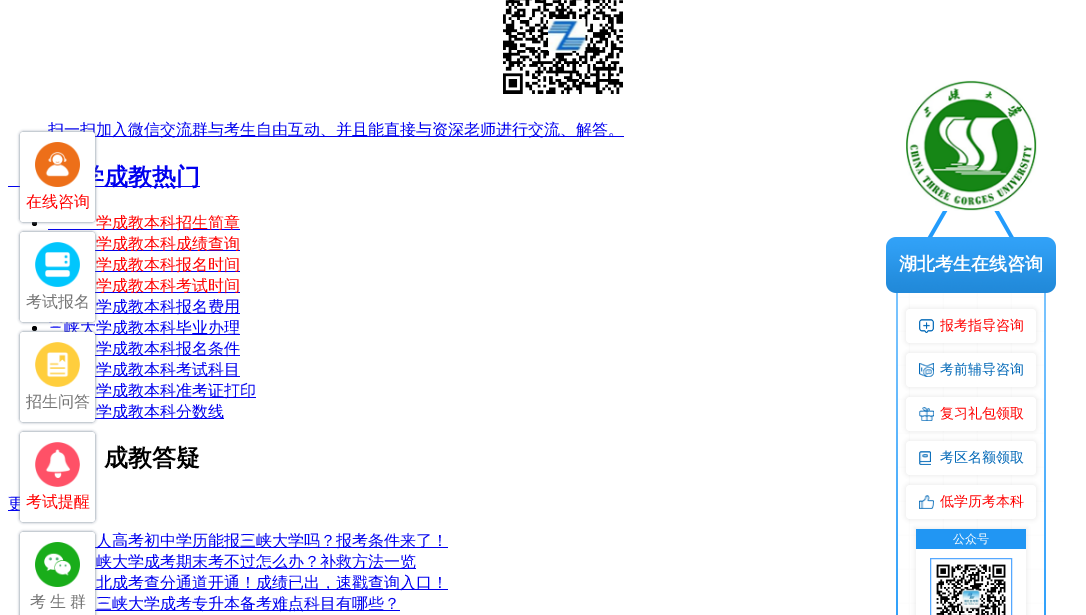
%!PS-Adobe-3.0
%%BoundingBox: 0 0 1086 615
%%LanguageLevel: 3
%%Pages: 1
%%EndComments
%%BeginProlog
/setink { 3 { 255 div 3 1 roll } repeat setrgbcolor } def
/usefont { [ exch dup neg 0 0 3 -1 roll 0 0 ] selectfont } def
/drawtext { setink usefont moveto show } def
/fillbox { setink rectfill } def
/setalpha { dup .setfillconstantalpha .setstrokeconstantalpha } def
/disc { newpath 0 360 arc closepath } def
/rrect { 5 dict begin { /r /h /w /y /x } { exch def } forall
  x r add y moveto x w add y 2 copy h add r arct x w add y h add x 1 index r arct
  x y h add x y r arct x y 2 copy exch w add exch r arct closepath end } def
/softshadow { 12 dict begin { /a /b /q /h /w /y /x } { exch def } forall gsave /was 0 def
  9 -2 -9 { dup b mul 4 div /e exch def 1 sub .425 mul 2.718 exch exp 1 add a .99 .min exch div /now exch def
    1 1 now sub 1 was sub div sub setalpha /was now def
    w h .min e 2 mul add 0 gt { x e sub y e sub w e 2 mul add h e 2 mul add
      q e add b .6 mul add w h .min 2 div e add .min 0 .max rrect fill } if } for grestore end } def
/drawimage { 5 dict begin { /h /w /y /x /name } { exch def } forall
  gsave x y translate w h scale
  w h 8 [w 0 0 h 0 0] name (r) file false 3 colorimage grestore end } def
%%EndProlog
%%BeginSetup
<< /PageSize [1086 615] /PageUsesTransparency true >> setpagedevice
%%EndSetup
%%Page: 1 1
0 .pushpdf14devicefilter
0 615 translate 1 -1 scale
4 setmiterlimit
0 0 1086 615 255 255 255 fillbox
(assets/img1.rgb) 503 0 120 94 drawimage
95 136 529 1 0 0 238 fillbox
(扫一扫加入微信交流群与考生自由互动、并且能直接与资深老师进行交流、解答。) 48 135 /WenQuanYiZenHei-Medium 16 0 0 238 drawtext
8 186 192 1 0 0 238 fillbox
(学成教热门) 80 185 /WenQuanYiZenHei-Bold 24 0 0 238 drawtext
0 0 0 setink
34.5 223.5 2.5 disc fill
48 229 192 1 0 0 238 fillbox
(学成教本科招生简章) 96 228 /WenQuanYiZenHei-Medium 16 255 0 0 drawtext
95 250 145 1 0 0 238 fillbox
(学成教本科成绩查询) 96 249 /WenQuanYiZenHei-Medium 16 255 0 0 drawtext
95 271 145 1 0 0 238 fillbox
(学成教本科报名时间) 96 270 /WenQuanYiZenHei-Medium 16 255 0 0 drawtext
95 292 145 1 0 0 238 fillbox
(学成教本科考试时间) 96 291 /WenQuanYiZenHei-Medium 16 255 0 0 drawtext
95 313 145 1 0 0 238 fillbox
(学成教本科报名费用) 96 312 /WenQuanYiZenHei-Medium 16 0 0 238 drawtext
0 0 0 setink
34.5 328.5 2.5 disc fill
94 334 146 1 0 0 238 fillbox
(三峡大学成教本科毕业办理) 48 333 /WenQuanYiZenHei-Medium 16 0 0 238 drawtext
95 355 145 1 0 0 238 fillbox
(学成教本科报名条件) 96 354 /WenQuanYiZenHei-Medium 16 0 0 238 drawtext
95 376 145 1 0 0 238 fillbox
(学成教本科考试科目) 96 375 /WenQuanYiZenHei-Medium 16 0 0 238 drawtext
95 397 161 1 0 0 238 fillbox
(学成教本科准考证打印) 96 396 /WenQuanYiZenHei-Medium 16 0 0 238 drawtext
95 418 129 1 0 0 238 fillbox
(学成教本科分数线) 96 417 /WenQuanYiZenHei-Medium 16 0 0 238 drawtext
(成教答疑) 104 466 /WenQuanYiZenHei-Bold 24 0 0 0 drawtext
8 510 12 1 0 0 238 fillbox
(更) 8 509 /WenQuanYiZenHei-Medium 16 0 0 238 drawtext
95 547 353 1 0 0 238 fillbox
(人高考初中学历能报三峡大学吗？报考条件来了！) 96 546 /WenQuanYiZenHei-Medium 16 0 0 238 drawtext
95 568 321 1 0 0 238 fillbox
(峡大学成考期末考不过怎么办？补救方法一览) 96 567 /WenQuanYiZenHei-Medium 16 0 0 238 drawtext
95 589 353 1 0 0 238 fillbox
(北成考查分通道开通！成绩已出，速戳查询入口！) 96 588 /WenQuanYiZenHei-Medium 16 0 0 238 drawtext
95 610 305 1 0 0 238 fillbox
(三峡大学成考专升本备考难点科目有哪些？) 96 609 /WenQuanYiZenHei-Medium 16 0 0 238 drawtext
112 128 144 setink
20 132 75 90 3 1.5 1 softshadow
255 255 255 setink
20 132 75 90 3 rrect fill
(assets/img2.rgb) 35 142 45 45 drawimage
(在线咨询) 26 207 /WenQuanYiZenHei-Medium 16 255 0 0 drawtext
112 128 144 setink
20 232 75 90 3 1.5 1 softshadow
255 255 255 setink
20 232 75 90 3 rrect fill
(assets/img3.rgb) 35 242 45 45 drawimage
(考试报名) 26 307 /WenQuanYiZenHei-Medium 16 116 116 116 drawtext
112 128 144 setink
20 332 75 90 3 1.5 1 softshadow
255 255 255 setink
20 332 75 90 3 rrect fill
(assets/img4.rgb) 35 342 45 45 drawimage
(招生问答) 26 407 /WenQuanYiZenHei-Medium 16 116 116 116 drawtext
112 128 144 setink
20 432 75 90 3 1.5 1 softshadow
255 255 255 setink
20 432 75 90 3 rrect fill
(assets/img5.rgb) 35 442 45 45 drawimage
(考试提醒) 26 507 /WenQuanYiZenHei-Medium 16 255 0 0 drawtext
112 128 144 setink
20 532 75 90 3 1.5 1 softshadow
255 255 255 setink
20 532 75 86 3 rrect fill
(assets/img6.rgb) 35 542 45 45 drawimage
116 116 116 setink
30 607 moveto -1 0 32 (考 生 群) widthshow
(assets/img7.rgb) 906 80 131 131 drawimage
(assets/img8.rgb) 886 211 170 404 drawimage
(湖北考生在线咨询) 899 270 /WenQuanYiZenHei-Bold 18 255 255 255 drawtext
201 201 201 setink
904 307 134 38 6 2 0.26 softshadow
255 255 255 setink
906 309 130 34 4 rrect fill
(assets/img9.rgb) 919 319 15 14 drawimage
(报考指导咨询) 940 330 /WenQuanYiZenHei-Medium 14 255 0 0 drawtext
201 201 201 setink
904 351 134 38 6 2 0.26 softshadow
255 255 255 setink
906 353 130 34 4 rrect fill
(assets/img10.rgb) 919 363 15 14 drawimage
(考前辅导咨询) 940 374 /WenQuanYiZenHei-Medium 14 1 104 183 drawtext
201 201 201 setink
904 395 134 38 6 2 0.26 softshadow
255 255 255 setink
906 397 130 34 4 rrect fill
(assets/img11.rgb) 919 407 15 14 drawimage
(复习礼包领取) 940 418 /WenQuanYiZenHei-Medium 14 255 0 0 drawtext
201 201 201 setink
904 439 134 38 6 2 0.26 softshadow
255 255 255 setink
906 441 130 34 4 rrect fill
(assets/img12.rgb) 919 451 12 14 drawimage
(考区名额领取) 940 462 /WenQuanYiZenHei-Medium 14 1 104 183 drawtext
201 201 201 setink
904 483 134 38 6 2 0.26 softshadow
255 255 255 setink
906 485 130 34 4 rrect fill
(assets/img13.rgb) 919 495 15 14 drawimage
(低学历考本科) 940 506 /WenQuanYiZenHei-Medium 14 255 0 0 drawtext
201 201 201 setink
914 527 114 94 0 2 0.26 softshadow
916 549 110 66 255 255 255 fillbox
916 529 110 20 33 150 243 fillbox
(公众号) 953 543 /WenQuanYiZenHei-Medium 12 255 255 255 drawtext
85 168 255 setink
930.5 558.5 81 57 rectstroke
(assets/img14.rgb) 936 564 70 51 drawimage
.poppdf14devicefilter showpage
%%EOF
